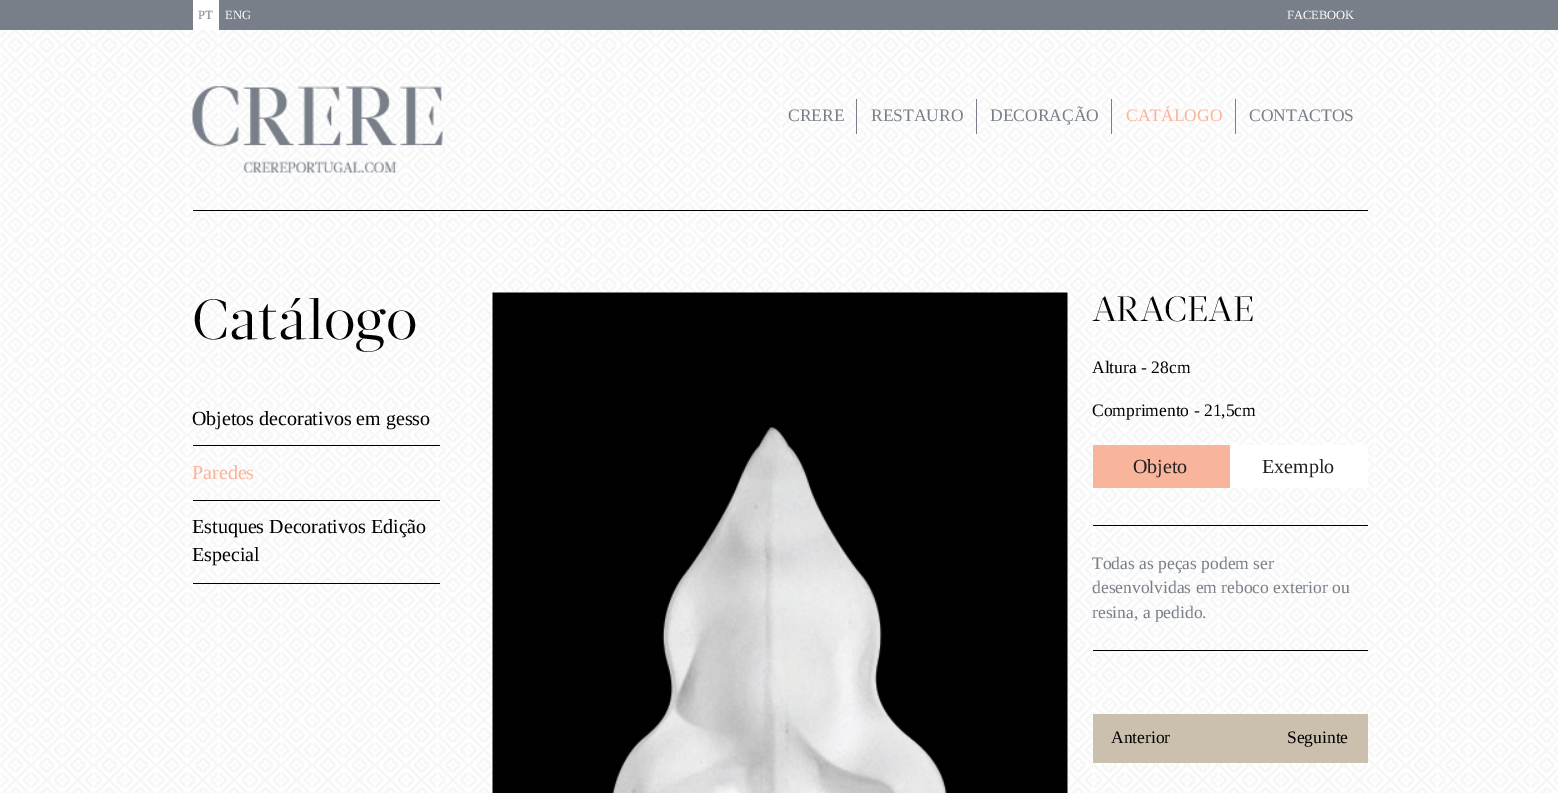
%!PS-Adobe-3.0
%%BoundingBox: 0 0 1558 793
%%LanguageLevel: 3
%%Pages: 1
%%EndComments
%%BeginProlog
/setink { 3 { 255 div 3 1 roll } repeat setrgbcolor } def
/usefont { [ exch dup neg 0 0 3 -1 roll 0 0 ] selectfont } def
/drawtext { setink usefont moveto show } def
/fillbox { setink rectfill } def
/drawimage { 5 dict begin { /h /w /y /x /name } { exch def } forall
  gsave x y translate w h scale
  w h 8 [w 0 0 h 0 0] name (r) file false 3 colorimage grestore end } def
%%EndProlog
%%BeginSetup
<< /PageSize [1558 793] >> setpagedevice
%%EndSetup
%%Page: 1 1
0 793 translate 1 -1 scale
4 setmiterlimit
0 0 1558 793 255 255 255 fillbox
(assets/img1.rgb) 0 30 1558 763 drawimage
0 0 1558 30 121 127 137 fillbox
193 0 26 30 255 255 255 fillbox
(PT) 198 19 /LiberationSerif-Regular 12.5 121 127 137 drawtext
(ENG) 225 19 /LiberationSerif-Regular 12.5 255 255 255 drawtext
(FACEBOOK) 1287 19 /LiberationSerif-Regular 12.5 255 255 255 drawtext
193 210 1175 1 0 0 0 fillbox
(assets/img2.rgb) 192 86 251 87 drawimage
856 99 1 35 121 127 137 fillbox
(CRERE) 788 121 /LiberationSerif-Regular 17.5 121 127 137 drawtext
976 99 1 35 121 127 137 fillbox
(RESTAURO) 871 121 /LiberationSerif-Regular 17.5 121 127 137 drawtext
1111 99 1 35 121 127 137 fillbox
(DECORAÇÃO) 990 121 /LiberationSerif-Regular 17.5 121 127 137 drawtext
1235 99 1 35 121 127 137 fillbox
(CATÁLOGO) 1126 121 /LiberationSerif-Regular 17.5 249 181 155 drawtext
(CONTACTOS) 1249 121 /LiberationSerif-Regular 17.5 121 127 137 drawtext
(Catálogo) 192 339 /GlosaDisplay-Regular 56.25 0 0 0 drawtext
193 445 247 1 0 0 0 fillbox
(Objetos decorativos em gesso) 192 425 /LiberationSerif-Regular 20 0 0 0 drawtext
193 500 247 1 0 0 0 fillbox
(Paredes) 192 479 /LiberationSerif-Regular 20 249 181 155 drawtext
193 583 247 1 0 0 0 fillbox
(Estuques Decorativos Edição) 192 533 /LiberationSerif-Regular 20 0 0 0 drawtext
(Especial) 192 561 /LiberationSerif-Regular 20 0 0 0 drawtext
(assets/img3.rgb) 492 292 576 501 drawimage
(ARACEAE) 1092 321 /GlosaDisplay-Regular 35 0 0 0 drawtext
(Altura - 28cm) 1092 373 /LiberationSerif-Regular 17.5 0 0 0 drawtext
(Comprimento - 21,5cm) 1092 416 /LiberationSerif-Regular 17.5 0 0 0 drawtext
1093 445 137 43 249 181 155 fillbox
(Objeto) 1133 473 /LiberationSerif-Regular 20 34 34 34 drawtext
1230 445 138 43 255 255 255 fillbox
(Exemplo) 1262 473 /LiberationSerif-Regular 20 34 34 34 drawtext
1093 525 275 1 0 0 0 fillbox
1093 650 275 1 0 0 0 fillbox
(Todas as peças podem ser) 1092 569 /LiberationSerif-Regular 17.5 121 127 137 drawtext
(desenvolvidas em reboco exterior ou) 1092 593 /LiberationSerif-Regular 17.5 121 127 137 drawtext
(resina, a pedido.) 1092 618 /LiberationSerif-Regular 17.5 121 127 137 drawtext
1093 714 275 49 203 192 173 fillbox
(Anterior) 1111 743 /LiberationSerif-Regular 17.5 0 0 0 drawtext
(Seguinte) 1287 743 /LiberationSerif-Regular 17.5 0 0 0 drawtext
showpage
%%EOF
